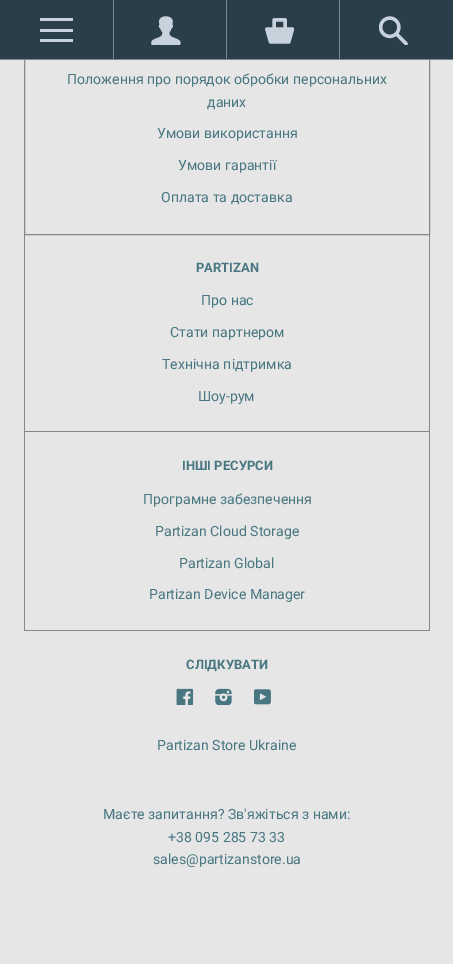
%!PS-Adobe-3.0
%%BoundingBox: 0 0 453 964
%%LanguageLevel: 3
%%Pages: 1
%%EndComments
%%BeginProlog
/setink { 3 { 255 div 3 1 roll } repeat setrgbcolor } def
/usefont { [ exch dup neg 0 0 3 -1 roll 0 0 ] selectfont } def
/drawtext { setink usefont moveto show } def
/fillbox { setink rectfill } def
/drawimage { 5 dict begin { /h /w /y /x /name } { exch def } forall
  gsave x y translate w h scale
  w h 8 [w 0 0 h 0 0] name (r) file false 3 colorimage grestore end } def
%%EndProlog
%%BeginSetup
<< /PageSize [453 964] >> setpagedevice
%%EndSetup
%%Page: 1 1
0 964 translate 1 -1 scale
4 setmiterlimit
0 0 453 964 230 230 230 fillbox
138 135 135 setink
24.5 -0.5 405 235 rectstroke
0 0 453 59 42 62 73 fillbox
0 59 453 1 121 136 147 fillbox
113 0 1 59 121 136 147 fillbox
40 29 33 3 200 210 220 fillbox
40 18 33 3 200 210 220 fillbox
40 39 33 3 200 210 220 fillbox
226 0 1 59 121 136 147 fillbox
(assets/img1.rgb) 151 16 30 29 drawimage
339 0 1 59 121 136 147 fillbox
(assets/img2.rgb) 265 18 29 26 drawimage
(assets/img3.rgb) 379 16 29 29 drawimage
(Положення про порядок обробки персональних) 67 84 /Roboto-Regular 14.1 72 118 129 drawtext
(даних) 207 107 /Roboto-Regular 14.1 72 118 129 drawtext
(Умови використання) 157 138 /Roboto-Regular 14.1 72 118 129 drawtext
(Умови гарантії) 178 170 /Roboto-Regular 14.1 72 118 129 drawtext
(Оплата та доставка) 161 202 /Roboto-Regular 14.1 72 118 129 drawtext
429 235 1 396 138 135 135 fillbox
24 431 406 1 138 135 135 fillbox
24 235 1 198 138 135 135 fillbox
(PARTIZAN) 196 272 /Roboto-Bold 13 72 118 129 drawtext
(Про нас) 201 305 /Roboto-Regular 14.1 72 118 129 drawtext
(Стати партнером) 170 337 /Roboto-Regular 14.1 72 118 129 drawtext
(Технічна підтримка) 162 369 /Roboto-Regular 14.1 72 118 129 drawtext
(Шоу-рум) 198 401 /Roboto-Regular 14.1 72 118 129 drawtext
24 630 406 1 138 135 135 fillbox
24 433 1 198 138 135 135 fillbox
(ІНШІ РЕСУРСИ) 182 470 /Roboto-Bold 13 72 118 129 drawtext
(Програмне забезпечення) 143 504 /Roboto-Regular 14.1 72 118 129 drawtext
(Partizan Cloud Storage) 155 536 /Roboto-Regular 14.1 72 118 129 drawtext
(Partizan Global) 179 568 /Roboto-Regular 14.1 72 118 129 drawtext
(Partizan Device Manager) 149 599 /Roboto-Regular 14.1 72 118 129 drawtext
(СЛІДКУВАТИ) 186 669 /Roboto-Bold 13 72 118 129 drawtext
(assets/img4.rgb) 176 688 18 17 drawimage
(assets/img5.rgb) 215 688 17 17 drawimage
(assets/img6.rgb) 254 689 17 16 drawimage
(Partizan Store Ukraine) 157 750 /Roboto-Regular 14.1 72 118 129 drawtext
(Маєте запитання? Зв'яжіться з нами:) 103 819 /Roboto-Regular 14.1 72 118 129 drawtext
(+38 095 285 73 33) 168 842 /Roboto-Regular 14.1 72 118 129 drawtext
(sales@partizanstore.ua) 153 864 /Roboto-Regular 14.1 72 118 129 drawtext
showpage
%%EOF
